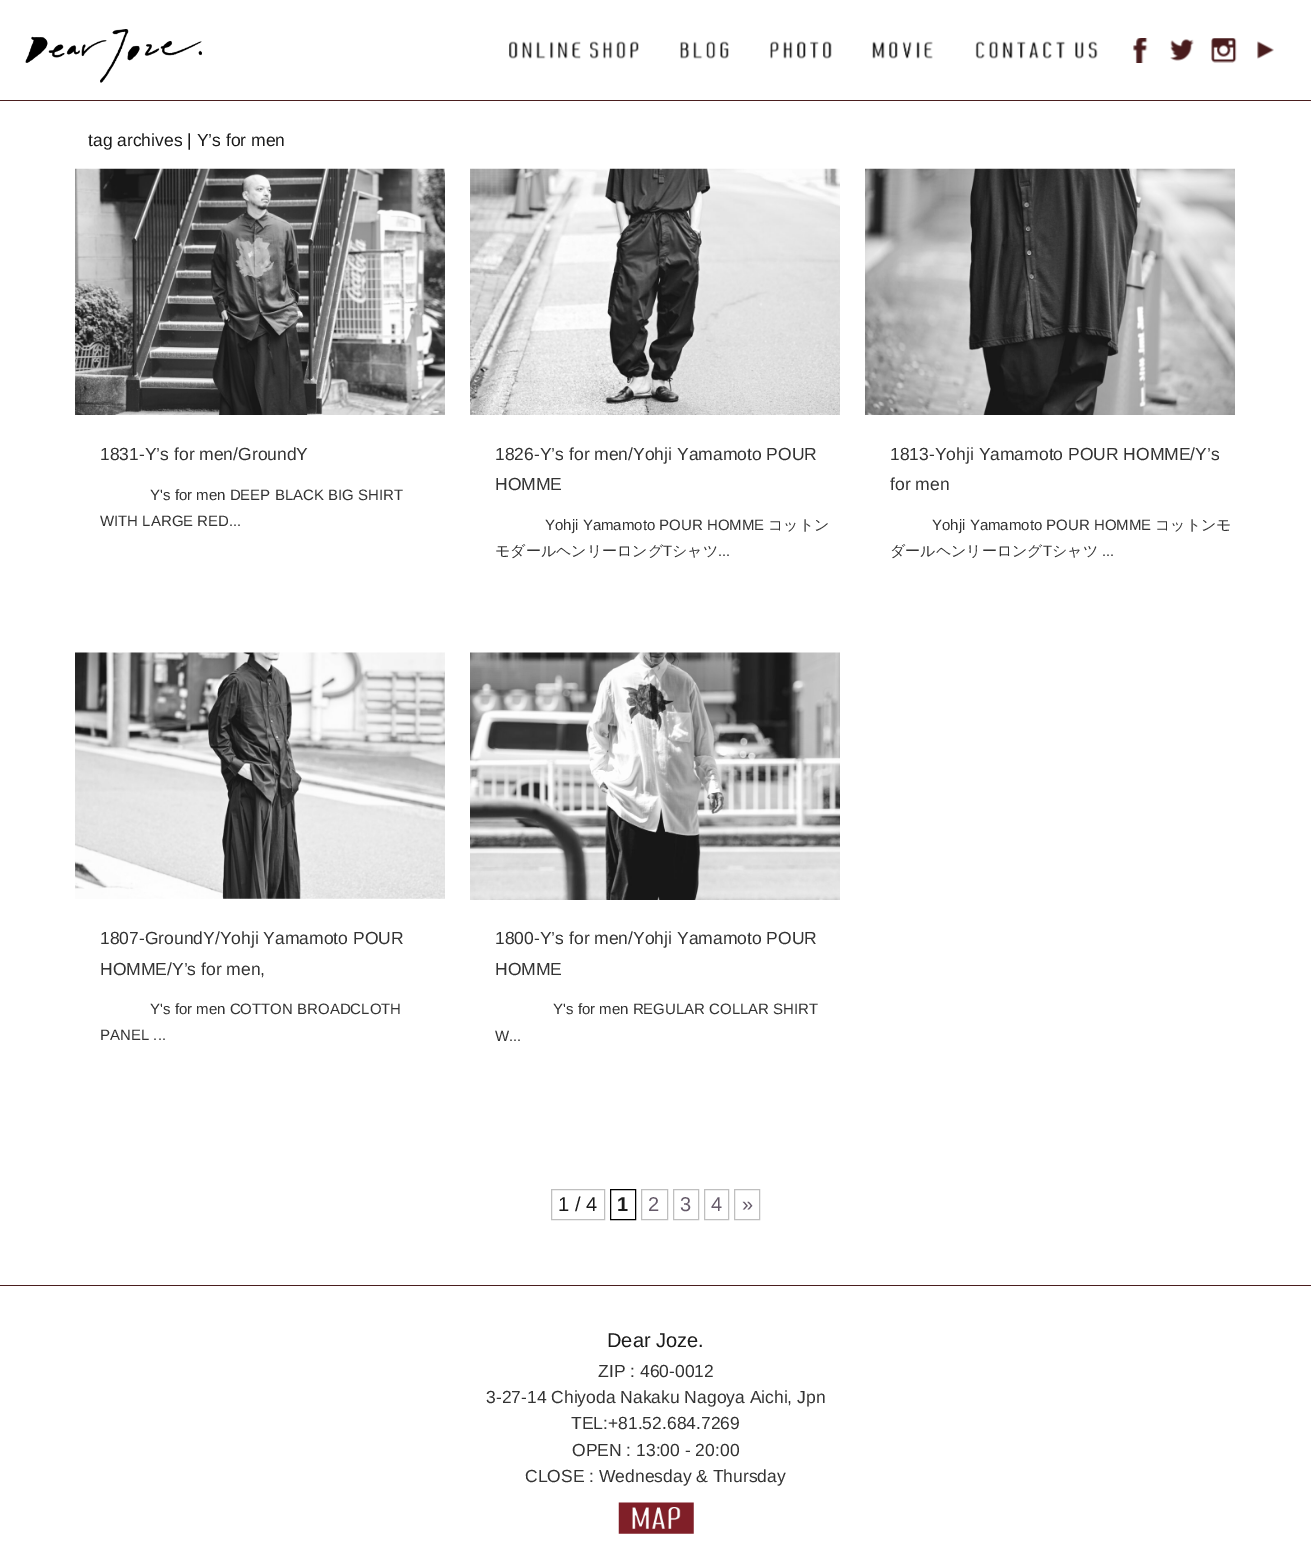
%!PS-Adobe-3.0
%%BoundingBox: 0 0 1311 1565
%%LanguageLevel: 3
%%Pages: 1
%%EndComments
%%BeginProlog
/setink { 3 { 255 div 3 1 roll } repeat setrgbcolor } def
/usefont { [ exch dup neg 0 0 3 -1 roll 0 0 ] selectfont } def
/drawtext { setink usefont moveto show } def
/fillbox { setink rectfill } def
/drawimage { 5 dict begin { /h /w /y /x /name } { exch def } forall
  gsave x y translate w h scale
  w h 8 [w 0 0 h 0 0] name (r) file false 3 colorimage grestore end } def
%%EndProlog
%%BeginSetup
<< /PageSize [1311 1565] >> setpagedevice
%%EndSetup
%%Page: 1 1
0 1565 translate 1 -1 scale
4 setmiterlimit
0 0 1311 1565 255 255 255 fillbox
0 100 1311 1 74 30 30 fillbox
(assets/img1.rgb) 25 29 177 54 drawimage
(assets/img2.rgb) 509 41 130 18 drawimage
(assets/img3.rgb) 680 41 49 18 drawimage
(assets/img4.rgb) 770 41 62 18 drawimage
(assets/img5.rgb) 872 41 61 18 drawimage
(assets/img6.rgb) 975 41 123 18 drawimage
(assets/img7.rgb) 1133 38 15 25 drawimage
(assets/img8.rgb) 1170 39 24 22 drawimage
(assets/img9.rgb) 1211 38 26 25 drawimage
(assets/img10.rgb) 1257 41 17 18 drawimage
(tag archives | Y’s for men) 88 146 /LiberationSans-Regular 17.5 26 26 26 drawtext
(assets/img11.rgb) 75 168 370 247 drawimage
(1831-Y’s for men/GroundY) 100 460 /LiberationSans-Regular 17.5 51 51 51 drawtext
(Y's for men DEEP BLACK BIG SHIRT) 150 500 /LiberationSans-Regular 15 51 51 51 drawtext
(WITH LARGE RED...) 100 526 /LiberationSans-Regular 15 51 51 51 drawtext
(assets/img12.rgb) 470 168 370 247 drawimage
(1826-Y’s for men/Yohji Yamamoto POUR) 495 460 /LiberationSans-Regular 17.5 51 51 51 drawtext
(HOMME) 495 490 /LiberationSans-Regular 17.5 51 51 51 drawtext
(Yohji Yamamoto POUR HOMME) 545 530 /LiberationSans-Regular 15 51 51 51 drawtext
(コットン) 768 530 /WenQuanYiZenHei-Medium 15 51 51 51 drawtext
(モダールヘンリーロング) 495 556 /WenQuanYiZenHei-Medium 15 51 51 51 drawtext
(T) 663 556 /LiberationSans-Regular 15 51 51 51 drawtext
(シャツ) 672 556 /WenQuanYiZenHei-Medium 15 51 51 51 drawtext
(...) 718 556 /LiberationSans-Regular 15 51 51 51 drawtext
(assets/img13.rgb) 865 168 370 247 drawimage
(1813-Yohji Yamamoto POUR HOMME/Y’s) 890 460 /LiberationSans-Regular 17.5 51 51 51 drawtext
(for men) 890 490 /LiberationSans-Regular 17.5 51 51 51 drawtext
(Yohji Yamamoto POUR HOMME) 932 530 /LiberationSans-Regular 15 51 51 51 drawtext
(コットンモ) 1155 530 /WenQuanYiZenHei-Medium 15 51 51 51 drawtext
(ダールヘンリーロング) 890 556 /WenQuanYiZenHei-Medium 15 51 51 51 drawtext
(T) 1043 556 /LiberationSans-Regular 15 51 51 51 drawtext
(シャツ) 1052 556 /WenQuanYiZenHei-Medium 15 51 51 51 drawtext
(...) 1102 556 /LiberationSans-Regular 15 51 51 51 drawtext
(assets/img14.rgb) 75 652 370 247 drawimage
(1807-GroundY/Yohji Yamamoto POUR) 100 944 /LiberationSans-Regular 17.5 51 51 51 drawtext
(HOMME/Y’s for men,) 100 975 /LiberationSans-Regular 17.5 51 51 51 drawtext
(Y's for men COTTON BROADCLOTH) 150 1014 /LiberationSans-Regular 15 51 51 51 drawtext
(PANEL ...) 100 1040 /LiberationSans-Regular 15 51 51 51 drawtext
(assets/img15.rgb) 470 652 370 248 drawimage
(1800-Y’s for men/Yohji Yamamoto POUR) 495 944 /LiberationSans-Regular 17.5 51 51 51 drawtext
(HOMME) 495 975 /LiberationSans-Regular 17.5 51 51 51 drawtext
(Y's for men REGULAR COLLAR SHIRT) 553 1014 /LiberationSans-Regular 15 51 51 51 drawtext
(W...) 495 1041 /LiberationSans-Regular 15 51 51 51 drawtext
191 191 191 setink
551.5 1189.5 53 30 rectstroke
(1 / 4) 558 1211 /LiberationSans-Regular 20 26 26 26 drawtext
0 0 0 setink
610.5 1189.5 25 30 rectstroke
(1) 617 1211 /LiberationSans-Bold 20 26 26 26 drawtext
191 191 191 setink
641.5 1189.5 26 30 rectstroke
(2) 648 1211 /LiberationSans-Regular 20 101 90 105 drawtext
191 191 191 setink
673.5 1189.5 25 30 rectstroke
(3) 680 1211 /LiberationSans-Regular 20 101 90 105 drawtext
191 191 191 setink
704.5 1189.5 24 30 rectstroke
(4) 711 1211 /LiberationSans-Regular 20 101 90 105 drawtext
191 191 191 setink
734.5 1189.5 25 30 rectstroke
(») 742 1211 /LiberationSans-Regular 20 101 90 105 drawtext
0 1285 1311 1 74 30 30 fillbox
(Dear Joze.) 607 1347 /LiberationSans-Regular 20 26 26 26 drawtext
(ZIP : 460-0012) 598 1377 /LiberationSans-Regular 17.5 51 51 51 drawtext
(3-27-14 Chiyoda Nakaku Nagoya Aichi, Jpn) 486 1403 /LiberationSans-Regular 17.5 51 51 51 drawtext
(TEL:+81.52.684.7269) 571 1429 /LiberationSans-Regular 17.5 51 51 51 drawtext
(OPEN : 13:00 - 20:00) 572 1456 /LiberationSans-Regular 17.5 51 51 51 drawtext
(CLOSE : Wednesday & Thursday) 525 1482 /LiberationSans-Regular 17.5 51 51 51 drawtext
(assets/img16.rgb) 618 1502 76 32 drawimage
showpage
%%EOF
